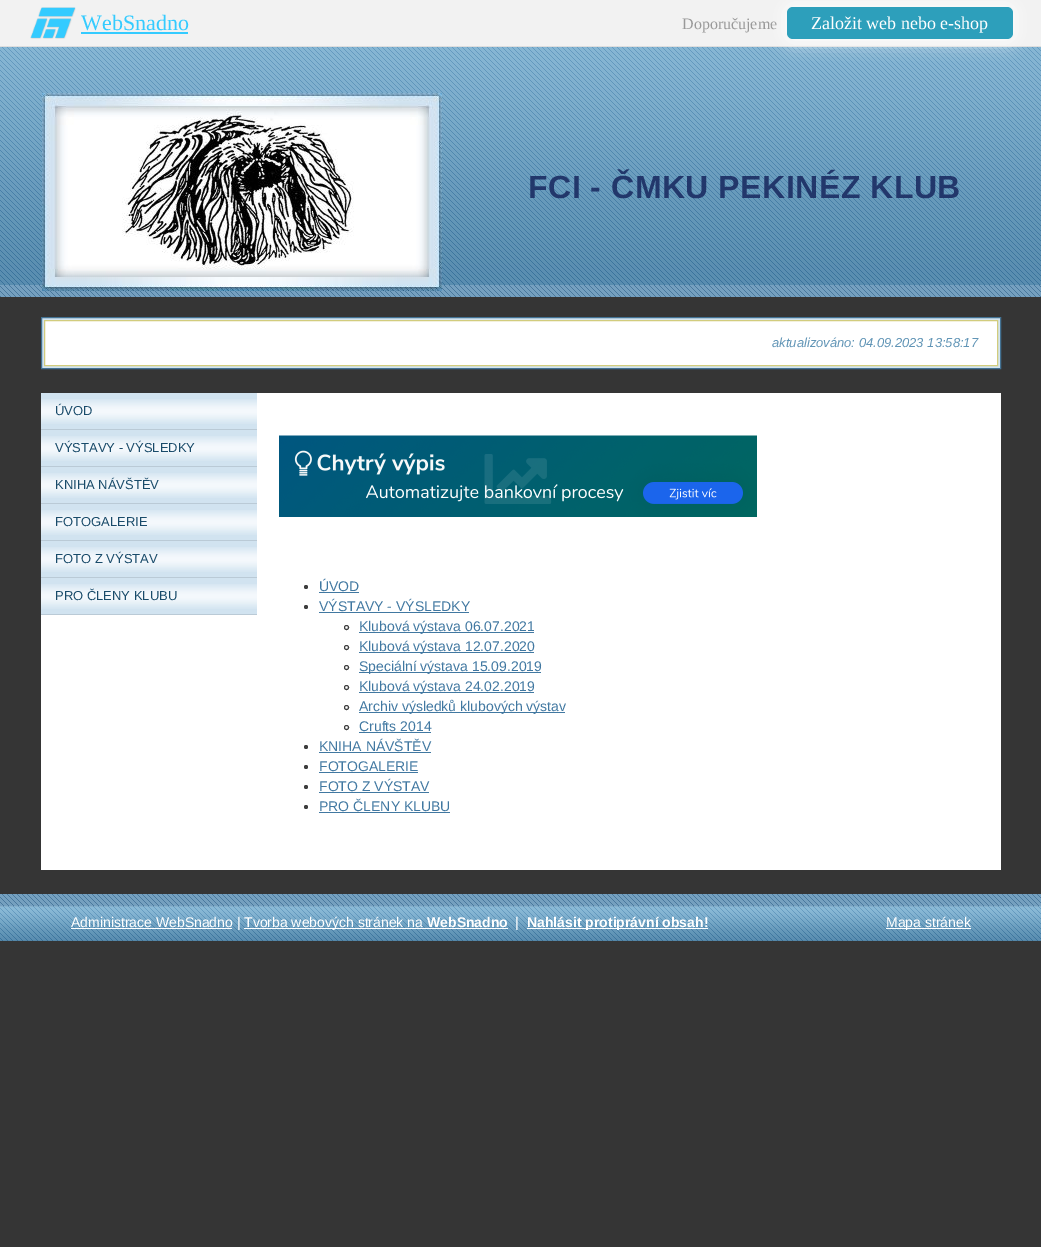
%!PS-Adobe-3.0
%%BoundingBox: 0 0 1041 1247
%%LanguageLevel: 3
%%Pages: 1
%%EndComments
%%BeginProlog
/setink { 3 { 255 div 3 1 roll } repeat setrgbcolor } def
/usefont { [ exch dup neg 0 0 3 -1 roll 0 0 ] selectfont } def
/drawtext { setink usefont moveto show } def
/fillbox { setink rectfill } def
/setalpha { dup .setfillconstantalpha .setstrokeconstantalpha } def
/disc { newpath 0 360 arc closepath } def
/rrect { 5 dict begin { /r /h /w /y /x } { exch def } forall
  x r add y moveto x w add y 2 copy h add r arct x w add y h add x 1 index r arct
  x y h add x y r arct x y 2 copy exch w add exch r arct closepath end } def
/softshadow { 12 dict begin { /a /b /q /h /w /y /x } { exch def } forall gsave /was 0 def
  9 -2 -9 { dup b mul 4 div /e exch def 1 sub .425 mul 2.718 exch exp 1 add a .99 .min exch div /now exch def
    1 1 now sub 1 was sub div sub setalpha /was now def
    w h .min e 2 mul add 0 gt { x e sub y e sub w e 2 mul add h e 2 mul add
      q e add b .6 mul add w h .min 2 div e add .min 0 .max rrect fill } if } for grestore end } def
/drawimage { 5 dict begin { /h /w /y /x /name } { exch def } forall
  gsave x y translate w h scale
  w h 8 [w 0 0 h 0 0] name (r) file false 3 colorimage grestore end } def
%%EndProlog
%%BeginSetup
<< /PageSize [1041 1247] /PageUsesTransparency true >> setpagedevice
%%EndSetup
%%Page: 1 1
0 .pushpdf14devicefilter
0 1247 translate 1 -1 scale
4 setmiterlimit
0 0 1041 1247 53 53 53 fillbox
(assets/img1.rgb) 0 47 1041 250 drawimage
0 0 1041 46 242 242 242 fillbox
0 46 1041 1 221 221 221 fillbox
(assets/img2.rgb) 30 7 46 32 drawimage
(WebSnadno) 81 30 /LiberationSerif-Regular 22 52 203 255 drawtext
81 32 107 2 52 203 255 fillbox
(Doporučujeme) 682 29 /LiberationSerif-Regular 16 153 153 153 drawtext
255 255 255 setink
783 3 234 40 10 8 0.75 softshadow
45 159 187 setink
787 7 226 32 6 rrect fill
(Založit web nebo e-shop) 811 29 /LiberationSerif-Regular 18 255 255 255 drawtext
(assets/img3.rgb) 42 93 400 198 drawimage
/LiberationSans-Bold 32 usefont
34 55 107 setink
528 198 moveto 0.5 0 (FCI - ČMKU PEKINÉZ KLUB) ashow
209 227 240 setink
41.5 317.5 moveto 1000.5 317.5 lineto 1000.5 368.5 lineto 41.5 368.5 lineto closepath gsave fill grestore
67 114 147 setink
stroke
255 255 255 setink
44.5 320.5 moveto 997.5 320.5 lineto 997.5 365.5 lineto 44.5 365.5 lineto closepath gsave fill grestore
210 204 125 setink
stroke
(aktualizováno: 04.09.2023 13:58:17) 772 347 /LiberationSans-Italic 13 97 149 182 drawtext
41 393 960 477 255 255 255 fillbox
41 393 216 36 209 227 240 fillbox
(assets/img4.rgb) 41 399 216 25 drawimage
41 429 216 1 186 202 214 fillbox
(ÚVOD) 55 415 /LiberationSans-Regular 13 25 75 106 drawtext
41 430 216 36 209 227 240 fillbox
(assets/img4.rgb) 41 436 216 25 drawimage
41 466 216 1 186 202 214 fillbox
(VÝSTAVY - VÝSLEDKY) 55 452 /LiberationSans-Regular 13 25 75 106 drawtext
41 467 216 36 209 227 240 fillbox
(assets/img4.rgb) 41 473 216 25 drawimage
41 503 216 1 186 202 214 fillbox
(KNIHA NÁVŠTĚV) 55 489 /LiberationSans-Regular 13 25 75 106 drawtext
41 504 216 36 209 227 240 fillbox
(assets/img4.rgb) 41 510 216 25 drawimage
41 540 216 1 186 202 214 fillbox
(FOTOGALERIE) 55 526 /LiberationSans-Regular 13 25 75 106 drawtext
41 541 216 36 209 227 240 fillbox
(assets/img4.rgb) 41 547 216 25 drawimage
41 577 216 1 186 202 214 fillbox
(FOTO Z VÝSTAV) 55 563 /LiberationSans-Regular 13 25 75 106 drawtext
41 578 216 36 209 227 240 fillbox
(assets/img4.rgb) 41 584 216 25 drawimage
41 614 216 1 186 202 214 fillbox
(PRO ČLENY KLUBU) 55 600 /LiberationSans-Regular 13 25 75 106 drawtext
(assets/img5.rgb) 279 435 478 82 drawimage
62 62 62 setink
306 587 2 disc fill
(ÚVOD) 319 591 /LiberationSans-Regular 14 65 120 161 drawtext
319 592 40 1 65 120 161 fillbox
62 62 62 setink
306 607 2 disc fill
(VÝSTAVY - VÝSLEDKY) 319 611 /LiberationSans-Regular 14 65 120 161 drawtext
319 612 150 1 65 120 161 fillbox
62 62 62 setink
346.5 627.5 2 disc stroke
359 632 175 1 65 120 161 fillbox
(Klubová výstava 06.07.2021) 359 631 /LiberationSans-Regular 14 65 120 161 drawtext
62 62 62 setink
346.5 647.5 2 disc stroke
359 652 175 1 65 120 161 fillbox
(Klubová výstava 12.07.2020) 359 651 /LiberationSans-Regular 14 65 120 161 drawtext
62 62 62 setink
346.5 667.5 2 disc stroke
359 672 182 1 65 120 161 fillbox
(Speciální výstava 15.09.2019) 359 671 /LiberationSans-Regular 14 65 120 161 drawtext
62 62 62 setink
346.5 687.5 2 disc stroke
359 692 175 1 65 120 161 fillbox
(Klubová výstava 24.02.2019) 359 691 /LiberationSans-Regular 14 65 120 161 drawtext
62 62 62 setink
346.5 707.5 2 disc stroke
359 712 206 1 65 120 161 fillbox
(Archiv výsledků klubových výstav) 359 711 /LiberationSans-Regular 14 65 120 161 drawtext
62 62 62 setink
346.5 727.5 2 disc stroke
(Crufts 2014) 359 731 /LiberationSans-Regular 14 65 120 161 drawtext
359 732 72 1 65 120 161 fillbox
62 62 62 setink
306 747 2 disc fill
(KNIHA NÁVŠTĚV) 319 751 /LiberationSans-Regular 14 65 120 161 drawtext
319 752 112 1 65 120 161 fillbox
62 62 62 setink
306 767 2 disc fill
(FOTOGALERIE) 319 771 /LiberationSans-Regular 14 65 120 161 drawtext
319 772 99 1 65 120 161 fillbox
62 62 62 setink
306 787 2 disc fill
(FOTO Z VÝSTAV) 319 791 /LiberationSans-Regular 14 65 120 161 drawtext
319 792 110 1 65 120 161 fillbox
62 62 62 setink
306 807 2 disc fill
(PRO ČLENY KLUBU) 319 811 /LiberationSans-Regular 14 65 120 161 drawtext
319 812 131 1 65 120 161 fillbox
(assets/img6.rgb) 0 894 1041 47 drawimage
71 928 161 1 255 255 255 fillbox
(Administrace WebSnadno |) 71 927 /LiberationSans-Regular 14 255 255 255 drawtext
244 928 264 1 255 255 255 fillbox
(Tvorba webových stránek na) 244 927 /LiberationSans-Regular 14 255 255 255 drawtext
(WebSnadno) 427 927 /LiberationSans-Bold 14 255 255 255 drawtext
(|) 515 927 /LiberationSans-Regular 14 255 255 255 drawtext
527 928 181 1 255 255 255 fillbox
(Nahlásit protiprávní obsah!) 527 927 /LiberationSans-Bold 14 255 255 255 drawtext
886 928 85 1 255 255 255 fillbox
(Mapa stránek) 886 927 /LiberationSans-Regular 14 255 255 255 drawtext
.poppdf14devicefilter showpage
%%EOF
